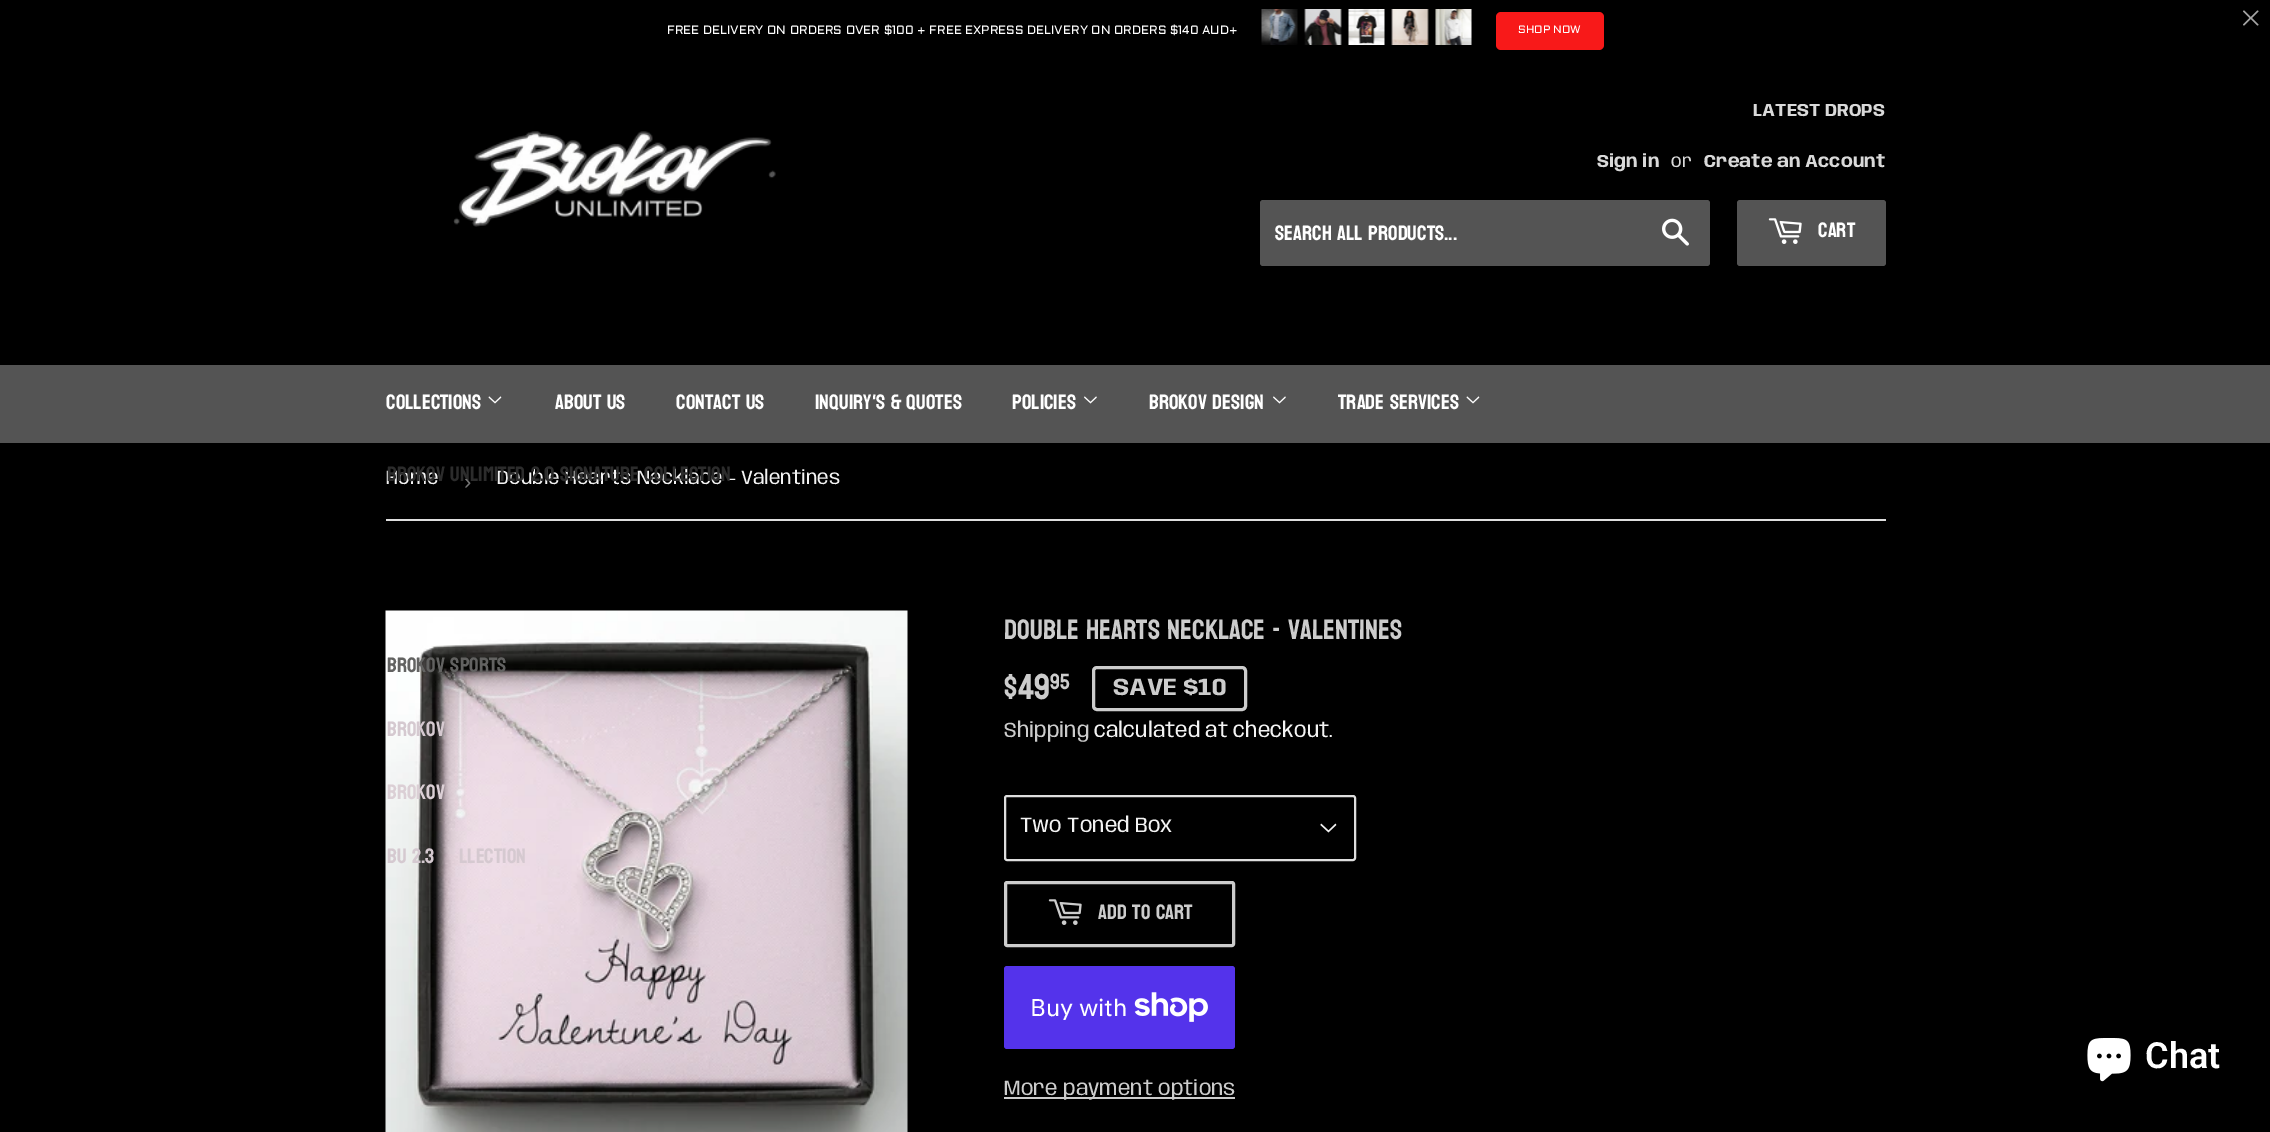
%!PS-Adobe-3.0
%%BoundingBox: 0 0 2270 1132
%%LanguageLevel: 3
%%Pages: 1
%%EndComments
%%BeginProlog
/setink { 3 { 255 div 3 1 roll } repeat setrgbcolor } def
/usefont { [ exch dup neg 0 0 3 -1 roll 0 0 ] selectfont } def
/drawtext { setink usefont moveto show } def
/fillbox { setink rectfill } def
/rrect { 5 dict begin { /r /h /w /y /x } { exch def } forall
  x r add y moveto x w add y 2 copy h add r arct x w add y h add x 1 index r arct
  x y h add x y r arct x y 2 copy exch w add exch r arct closepath end } def
/drawimage { 5 dict begin { /h /w /y /x /name } { exch def } forall
  gsave x y translate w h scale
  w h 8 [w 0 0 h 0 0] name (r) file false 3 colorimage grestore end } def
%%EndProlog
%%BeginSetup
<< /PageSize [2270 1132] >> setpagedevice
%%EndSetup
%%Page: 1 1
0 1132 translate 1 -1 scale
4 setmiterlimit
0 0 2270 1132 0 0 0 fillbox
163 163 163 setink
2243.5 10.5 moveto 2244 10.5 lineto 2258.5 24.5 lineto 2258 25.5 lineto 2257.5 25.5 lineto 2243 11.5 lineto closepath fill
2258 10.5 moveto 2258.5 11.5 lineto 2244 25.5 lineto 2243.5 25.5 lineto 2243 24.5 lineto 2257.5 10.5 lineto closepath fill
(FREE DELIVERY ON ORDERS OVER $100 + FREE EXPRESS DELIVERY ON ORDERS $140 AUD+) 667 34 /Aldrich-Regular 12 255 255 255 drawtext
(assets/img1.rgb) 1261 9 37 36 drawimage
(assets/img2.rgb) 1304 9 38 36 drawimage
(assets/img3.rgb) 1348 9 37 36 drawimage
(assets/img4.rgb) 1391 9 38 36 drawimage
(assets/img5.rgb) 1435 9 37 36 drawimage
248 25 25 setink
1496 12 108 38 5 rrect fill
(SHOP NOW) 1518 33 /Aldrich-Regular 10.75 255 255 255 drawtext
(assets/img6.rgb) 453 131 323 96 drawimage
(LATEST DROPS) 1753 116 /Anybody-Bold 17.8 217 217 217 drawtext
(Sign in) 1597 167 /Anybody-Bold 17.8 217 217 217 drawtext
(or) 1671 167 /Anybody-Regular 17.8 217 217 217 drawtext
(Create an Account) 1704 167 /Anybody-Bold 17.8 217 217 217 drawtext
84 84 84 setink
1260 200 450 66 3 rrect fill
(Search all products...) 1275 240 /Bayon-Regular 21 255 255 255 drawtext
(assets/img7.rgb) 1662 218 27 28 drawimage
84 84 84 setink
1737 200 149 66 3 rrect fill
(assets/img8.rgb) 1768 218 34 26 drawimage
(CART) 1818 237 /Bayon-Regular 21 255 255 255 drawtext
0 365 2270 78 84 84 84 fillbox
(COLLECTIONS) 386 409 /Bayon-Regular 21 255 255 255 drawtext
(assets/img9.rgb) 488 396 14 8 drawimage
(Home) 386 484 /Anybody-Regular 19.5 243 243 243 drawtext
(Double Hearts Necklace - Valentines) 497 484 /Anybody-Regular 19.5 243 243 243 drawtext
(BROKOV UNLIMITED 2.0 Signature Collection) 387 481 /Bayon-Regular 21 44 44 44 drawtext
(assets/img11.rgb) 385 610 523 522 drawimage
(BROKOV SPORTS) 387 672 /Bayon-Regular 21 98 98 97 drawtext
(BROKOV) 387 736 /Bayon-Regular 21 213 201 208 drawtext
(BROKOV) 387 799 /Bayon-Regular 21 219 207 213 drawtext
(BU 2.3) 387 863 /Bayon-Regular 21 213 201 208 drawtext
(llection) 459 863 /Bayon-Regular 21 213 201 208 drawtext
(ABOUT US) 555 409 /Bayon-Regular 21 255 255 255 drawtext
(CONTACT US) 676 409 /Bayon-Regular 21 255 255 255 drawtext
(INQUIRY'S & QUOTES) 815 409 /Bayon-Regular 21 255 255 255 drawtext
(POLICIES) 1012 409 /Bayon-Regular 21 255 255 255 drawtext
(assets/img10.rgb) 1084 396 13 8 drawimage
(BROKOV DESIGN) 1149 409 /Bayon-Regular 21 255 255 255 drawtext
(assets/img10.rgb) 1273 396 13 8 drawimage
(TRADE SERVICES) 1338 409 /Bayon-Regular 21 255 255 255 drawtext
(assets/img9.rgb) 1466 396 14 8 drawimage
386 519 1500 2 222 222 222 fillbox
(›) 464 489 /LiberationSans-Regular 22 118 118 118 drawtext
(Double Hearts Necklace - Valentines) 1004 639 /Bayon-Regular 28 204 204 204 drawtext
($49) 1004 699 /Bayon-Regular 36 204 204 204 drawtext
(95) 1050 689 /Bayon-Regular 22 204 204 204 drawtext
3 setlinewidth
1093.5 667.5 152 42 3.5 rrect stroke
(SAVE $10) 1113 695 /Anybody-Bold 24 204 204 204 drawtext
(Shipping) 1004 737 /Anybody-Regular 21 204 204 204 drawtext
(calculated at checkout.) 1094 737 /Anybody-Regular 21 243 243 243 drawtext
(assets/img12.rgb) 1320 823 17 10 drawimage
222 222 222 setink
2 setlinewidth
1005 796 350 64 2 rrect stroke
(Two Toned Box) 1020 832 /Anybody-Regular 21 243 243 243 drawtext
204 204 204 setink
3 setlinewidth
1005.5 882.5 228 63 1.5 rrect stroke
(assets/img13.rgb) 1048 899 34 26 drawimage
(ADD TO CART) 1098 919 /Bayon-Regular 21 204 204 204 drawtext
84 51 235 setink
1004 966 231 83 3 rrect fill
(Buy with) 1030 1016 /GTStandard-Regular 24 255 255 255 drawtext
(assets/img14.rgb) 1134 992 74 30 drawimage
1004 1097 231 2 204 204 204 fillbox
(More payment options) 1004 1095 /Anybody-Regular 21 204 204 204 drawtext
(assets/img15.rgb) 2087 1038 44 44 drawimage
(Chat) 2145 1068 /Roboto-SemiBold 36 255 255 255 drawtext
showpage
%%EOF
